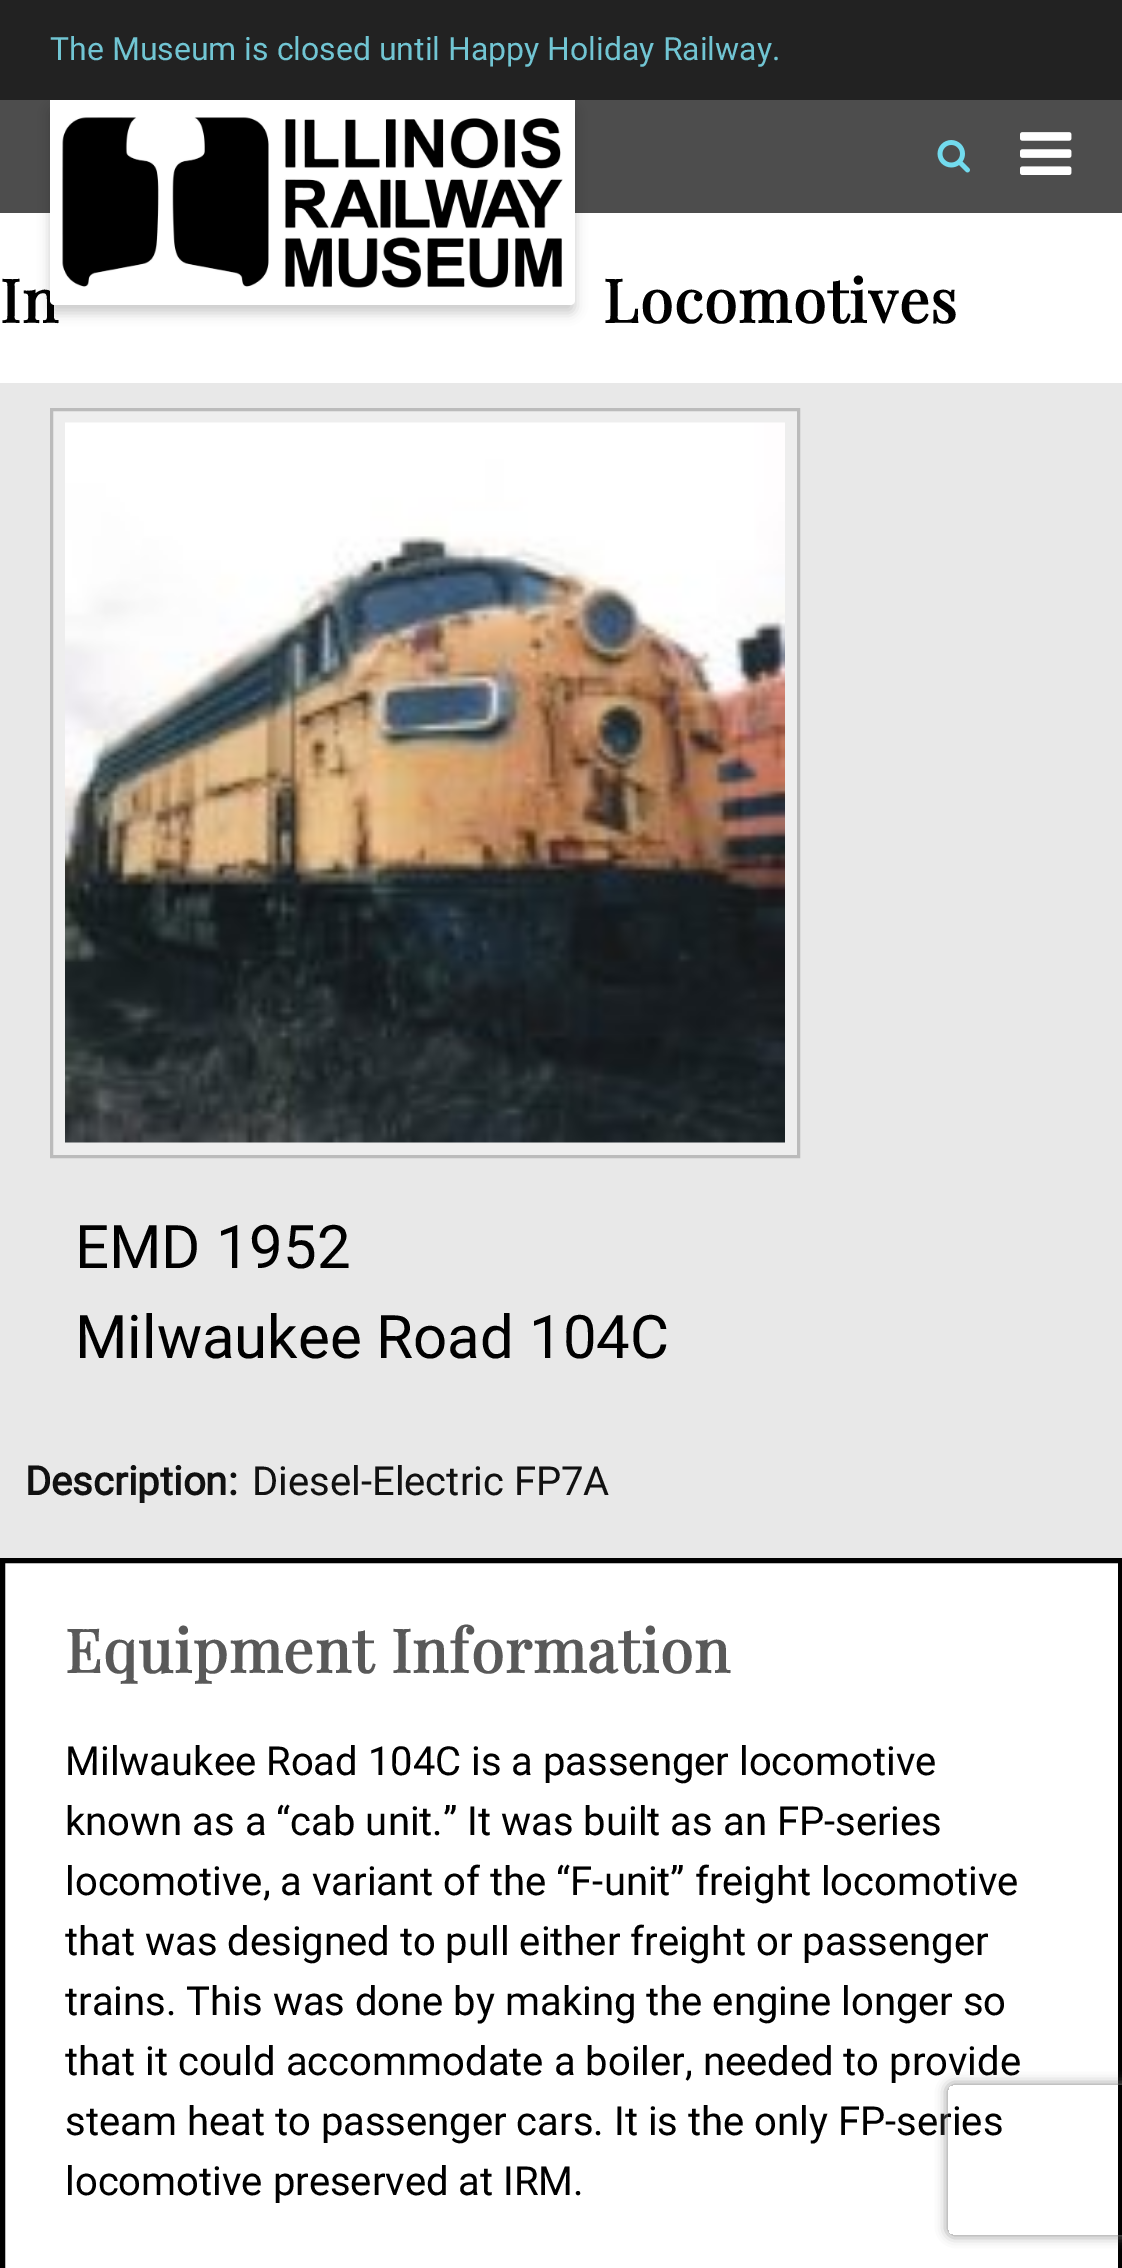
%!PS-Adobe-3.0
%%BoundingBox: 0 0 1122 2268
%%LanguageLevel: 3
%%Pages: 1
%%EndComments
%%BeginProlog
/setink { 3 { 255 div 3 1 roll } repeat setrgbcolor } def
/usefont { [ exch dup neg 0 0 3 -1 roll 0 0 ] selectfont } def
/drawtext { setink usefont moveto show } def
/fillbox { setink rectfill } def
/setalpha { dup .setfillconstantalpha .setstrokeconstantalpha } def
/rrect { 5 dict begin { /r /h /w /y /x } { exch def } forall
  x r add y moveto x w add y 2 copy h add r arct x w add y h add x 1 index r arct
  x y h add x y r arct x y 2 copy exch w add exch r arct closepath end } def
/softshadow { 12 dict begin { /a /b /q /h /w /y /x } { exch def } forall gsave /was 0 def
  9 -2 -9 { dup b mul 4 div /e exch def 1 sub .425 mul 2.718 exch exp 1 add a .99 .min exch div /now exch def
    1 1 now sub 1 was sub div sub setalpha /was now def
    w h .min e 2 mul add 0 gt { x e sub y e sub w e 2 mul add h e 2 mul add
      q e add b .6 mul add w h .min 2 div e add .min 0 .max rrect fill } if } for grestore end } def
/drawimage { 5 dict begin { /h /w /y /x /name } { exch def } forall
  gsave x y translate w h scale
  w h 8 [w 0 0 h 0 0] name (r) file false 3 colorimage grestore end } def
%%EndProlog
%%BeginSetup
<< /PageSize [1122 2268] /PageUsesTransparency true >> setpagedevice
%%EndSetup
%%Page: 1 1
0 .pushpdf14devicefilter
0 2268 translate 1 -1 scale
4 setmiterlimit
0 0 1122 2268 255 255 255 fillbox
0 0 1122 100 34 34 34 fillbox
(The Museum is closed until Happy Holiday Railway.) 50 60 /Roboto-Regular 32 113 197 211 drawtext
0 100 1122 113 77 77 77 fillbox
0 0 0 setink
50 108 525 205 5 6 0.2 softshadow
/PlayfairDisplay-Bold 60 usefont
0 323 moveto 1.25 0 (In) ashow
255 255 255 setink
50 100 moveto 575 100 lineto 575 300 lineto 575 303 573 305 570 305 curveto 55 305 lineto 52 305 50 303 50 300 curveto closepath fill
(assets/img1.rgb) 62 117 501 171 drawimage
(assets/img2.rgb) 937 140 33 33 drawimage
(assets/img3.rgb) 1020 132 52 43 drawimage
0 0 0 setink
603 323 moveto 1.25 0 (Locomotives) ashow
0 383 1122 1175 232 232 232 fillbox
238 238 238 setink
51.5 409.5 moveto 798.5 409.5 lineto 798.5 1156.5 lineto 51.5 1156.5 lineto closepath gsave fill grestore
187 187 187 setink
3 setlinewidth
stroke
(assets/img4.rgb) 65 422 720 721 drawimage
(EMD 1952) 75 1268 /Roboto-Regular 60 0 0 0 drawtext
(Milwaukee Road 104C) 75 1358 /Roboto-Regular 60 0 0 0 drawtext
(Description:) 25 1495 /Roboto-Bold 40 17 17 17 drawtext
(Diesel-Electric FP7A) 252 1495 /Roboto-Regular 40 17 17 17 drawtext
0 0 0 setink
5 setlinewidth
2.5 1560.5 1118 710 rectstroke
/PlayfairDisplay-Bold 60 usefont
89 89 89 setink
65 1673 moveto 1.25 0 (Equipment Information) ashow
(Milwaukee Road 104C is a passenger locomotive) 65 1775 /Roboto-Regular 40 0 0 0 drawtext
(known as a “cab unit.” It was built as an FP-series) 65 1835 /Roboto-Regular 40 0 0 0 drawtext
(locomotive, a variant of the “F-unit” freight locomotive) 65 1895 /Roboto-Regular 40 0 0 0 drawtext
(that was designed to pull either freight or passenger) 65 1955 /Roboto-Regular 40 0 0 0 drawtext
(trains. This was done by making the engine longer so) 65 2015 /Roboto-Regular 40 0 0 0 drawtext
(that it could accommodate a boiler, needed to provide) 65 2075 /Roboto-Regular 40 0 0 0 drawtext
(steam heat to passenger cars. It is the only FP-series) 65 2135 /Roboto-Regular 40 0 0 0 drawtext
(locomotive preserved at IRM.) 65 2195 /Roboto-Regular 40 0 0 0 drawtext
gsave
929 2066 moveto 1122 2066 lineto 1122 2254 lineto 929 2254 lineto closepath 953 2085 moveto 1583 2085 lineto 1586 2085 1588 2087 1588 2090 curveto 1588 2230 lineto 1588 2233 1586 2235 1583 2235 curveto 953 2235 lineto 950 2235 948 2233 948 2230 curveto 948 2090 lineto 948 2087 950 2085 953 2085 curveto closepath eoclip newpath
128 128 128 setink
948 2085 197 150 5 6 1 softshadow
grestore
.poppdf14devicefilter showpage
%%EOF
